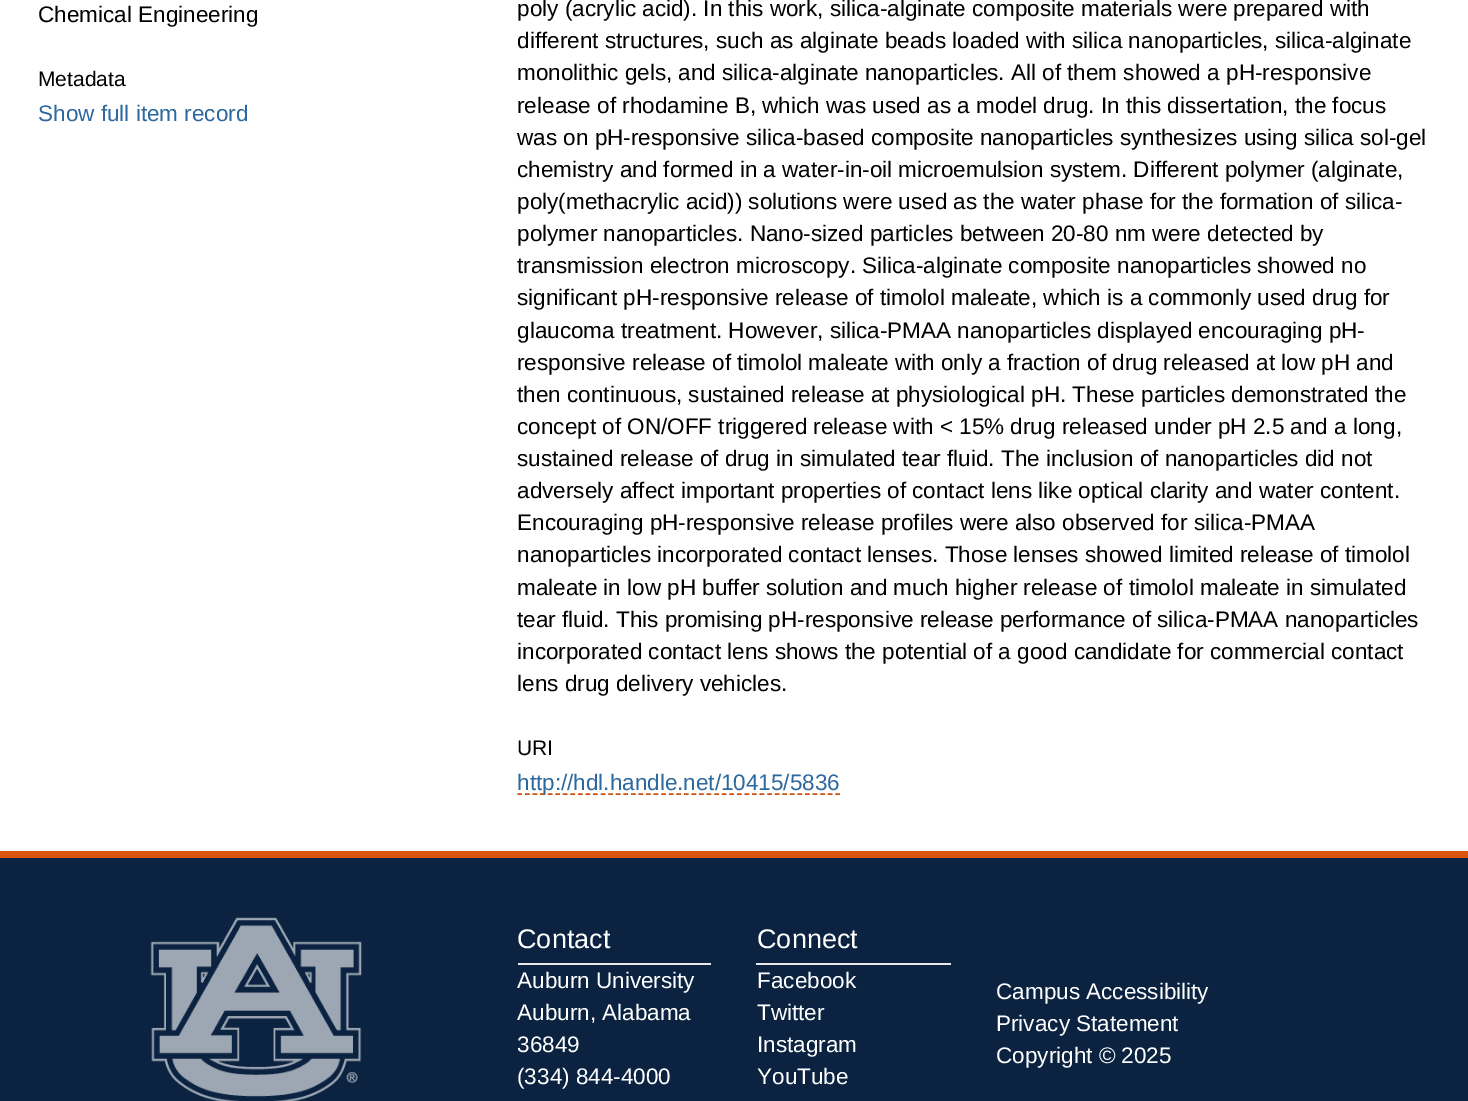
%!PS-Adobe-3.0
%%BoundingBox: 0 0 1468 1101
%%LanguageLevel: 3
%%Pages: 1
%%EndComments
%%BeginProlog
/setink { 3 { 255 div 3 1 roll } repeat setrgbcolor } def
/usefont { [ exch dup neg 0 0 3 -1 roll 0 0 ] selectfont } def
/drawtext { setink usefont moveto show } def
/fillbox { setink rectfill } def
/drawimage { 5 dict begin { /h /w /y /x /name } { exch def } forall
  gsave x y translate w h scale
  w h 8 [w 0 0 h 0 0] name (r) file false 3 colorimage grestore end } def
%%EndProlog
%%BeginSetup
<< /PageSize [1468 1101] >> setpagedevice
%%EndSetup
%%Page: 1 1
0 1101 translate 1 -1 scale
4 setmiterlimit
0 0 1468 1101 255 255 255 fillbox
(Chemical Engineering) 38 22 /LiberationSans-Regular 22.5 0 0 0 drawtext
(Metadata) 38 86 /LiberationSans-Regular 21 0 0 0 drawtext
(Show full item record) 38 121 /LiberationSans-Regular 22.5 45 105 158 drawtext
(poly \(acrylic acid\). In this work, silica-alginate composite materials were prepared with) 517 16 /LiberationSans-Regular 22.5 0 0 0 drawtext
(different structures, such as alginate beads loaded with silica nanoparticles, silica-alginate) 517 48 /LiberationSans-Regular 22.5 0 0 0 drawtext
(monolithic gels, and silica-alginate nanoparticles. All of them showed a pH-responsive) 517 80 /LiberationSans-Regular 22.5 0 0 0 drawtext
(release of rhodamine B, which was used as a model drug. In this dissertation, the focus) 517 113 /LiberationSans-Regular 22.5 0 0 0 drawtext
(was on pH-responsive silica-based composite nanoparticles synthesizes using silica sol-gel) 517 145 /LiberationSans-Regular 22.5 0 0 0 drawtext
(chemistry and formed in a water-in-oil microemulsion system. Different polymer \(alginate,) 517 177 /LiberationSans-Regular 22.5 0 0 0 drawtext
(poly\(methacrylic acid\)\) solutions were used as the water phase for the formation of silica-) 517 209 /LiberationSans-Regular 22.5 0 0 0 drawtext
(polymer nanoparticles. Nano-sized particles between 20-80 nm were detected by) 517 241 /LiberationSans-Regular 22.5 0 0 0 drawtext
(transmission electron microscopy. Silica-alginate composite nanoparticles showed no) 517 273 /LiberationSans-Regular 22.5 0 0 0 drawtext
(significant pH-responsive release of timolol maleate, which is a commonly used drug for) 517 305 /LiberationSans-Regular 22.5 0 0 0 drawtext
(glaucoma treatment. However, silica-PMAA nanoparticles displayed encouraging pH-) 517 338 /LiberationSans-Regular 22.5 0 0 0 drawtext
(responsive release of timolol maleate with only a fraction of drug released at low pH and) 517 370 /LiberationSans-Regular 22.5 0 0 0 drawtext
(then continuous, sustained release at physiological pH. These particles demonstrated the) 517 402 /LiberationSans-Regular 22.5 0 0 0 drawtext
(concept of ON/OFF triggered release with < 15% drug released under pH 2.5 and a long,) 517 434 /LiberationSans-Regular 22.5 0 0 0 drawtext
(sustained release of drug in simulated tear fluid. The inclusion of nanoparticles did not) 517 466 /LiberationSans-Regular 22.5 0 0 0 drawtext
(adversely affect important properties of contact lens like optical clarity and water content.) 517 498 /LiberationSans-Regular 22.5 0 0 0 drawtext
(Encouraging pH-responsive release profiles were also observed for silica-PMAA) 517 530 /LiberationSans-Regular 22.5 0 0 0 drawtext
(nanoparticles incorporated contact lenses. Those lenses showed limited release of timolol) 517 562 /LiberationSans-Regular 22.5 0 0 0 drawtext
(maleate in low pH buffer solution and much higher release of timolol maleate in simulated) 517 595 /LiberationSans-Regular 22.5 0 0 0 drawtext
(tear fluid. This promising pH-responsive release performance of silica-PMAA nanoparticles) 517 627 /LiberationSans-Regular 22.5 0 0 0 drawtext
(incorporated contact lens shows the potential of a good candidate for commercial contact) 517 659 /LiberationSans-Regular 22.5 0 0 0 drawtext
(lens drug delivery vehicles.) 517 691 /LiberationSans-Regular 22.5 0 0 0 drawtext
(URI) 517 755 /LiberationSans-Regular 21 0 0 0 drawtext
204 78 11 setink
1.5 setlinewidth
[4.5 3.07] 0 setdash
517.5 794 moveto 840 794 lineto stroke
(http://hdl.handle.net/10415/5836) 517 790 /LiberationSans-Regular 22.5 45 105 158 drawtext
0 858 1468 243 11 35 65 fillbox
0 851 1468 7 221 85 12 fillbox
(assets/img1.rgb) 150 917 212 184 drawimage
518 963 193 2 234 234 234 fillbox
(Contact) 517 948 /LiberationSans-Regular 27 255 255 255 drawtext
(Auburn University) 517 988 /LiberationSans-Regular 22.5 255 255 255 drawtext
(Auburn, Alabama) 517 1020 /LiberationSans-Regular 22.5 255 255 255 drawtext
(36849) 517 1052 /LiberationSans-Regular 22.5 255 255 255 drawtext
(\(334\) 844-4000) 517 1084 /LiberationSans-Regular 22.5 255 255 255 drawtext
756 963 195 2 234 234 234 fillbox
(Connect) 757 948 /LiberationSans-Regular 27 255 255 255 drawtext
(Facebook) 757 988 /LiberationSans-Regular 22.5 255 255 255 drawtext
(Twitter) 757 1020 /LiberationSans-Regular 22.5 255 255 255 drawtext
(Instagram) 757 1052 /LiberationSans-Regular 22.5 255 255 255 drawtext
(YouTube) 757 1084 /LiberationSans-Regular 22.5 255 255 255 drawtext
(Campus Accessibility) 996 999 /LiberationSans-Regular 22.5 255 255 255 drawtext
(Privacy Statement) 996 1031 /LiberationSans-Regular 22.5 255 255 255 drawtext
(Copyright © 2025) 996 1063 /LiberationSans-Regular 22.5 255 255 255 drawtext
showpage
%%EOF
